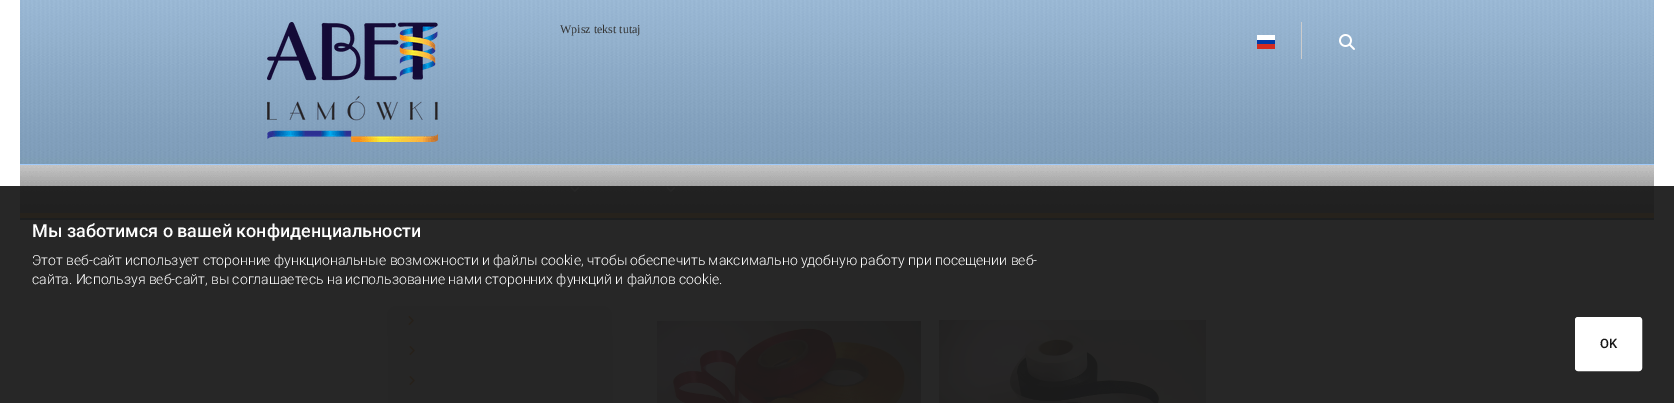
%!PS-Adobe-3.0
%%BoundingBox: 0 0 1674 403
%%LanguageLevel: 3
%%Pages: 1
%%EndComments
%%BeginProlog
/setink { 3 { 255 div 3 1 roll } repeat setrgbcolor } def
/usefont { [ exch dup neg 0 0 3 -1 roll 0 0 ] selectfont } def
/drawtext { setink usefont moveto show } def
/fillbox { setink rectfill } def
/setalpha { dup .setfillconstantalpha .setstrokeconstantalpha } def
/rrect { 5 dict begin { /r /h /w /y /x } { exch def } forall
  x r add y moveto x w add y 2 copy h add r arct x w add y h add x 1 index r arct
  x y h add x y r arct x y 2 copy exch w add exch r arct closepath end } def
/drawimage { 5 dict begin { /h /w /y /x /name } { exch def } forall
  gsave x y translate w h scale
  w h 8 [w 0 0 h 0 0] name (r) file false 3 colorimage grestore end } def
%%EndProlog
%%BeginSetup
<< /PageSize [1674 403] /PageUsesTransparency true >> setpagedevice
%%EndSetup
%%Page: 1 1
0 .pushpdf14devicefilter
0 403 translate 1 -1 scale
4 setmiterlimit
0 0 1674 403 255 255 255 fillbox
(assets/img1.rgb) 20 0 1634 164 drawimage
20 164 1634 1 159 201 249 fillbox
(assets/img2.rgb) 267 22 171 120 drawimage
(Wpisz tekst tutaj) 560 33 /LiberationSerif-Regular 12 51 51 51 drawtext
1301 22 1 37 204 204 204 fillbox
1257 35 18 5 255 255 255 fillbox
1257 40 18 4 0 57 166 fillbox
1257 44 18 5 213 43 30 fillbox
(assets/img3.rgb) 1339 34 16 16 drawimage
(assets/img4.rgb) 20 165 1634 48 drawimage
20 213 1634 5 249 161 37 fillbox
(assets/img5.rgb) 570 187 9 5 drawimage
(assets/img6.rgb) 666 187 9 5 drawimage
20 218 1634 2 47 83 114 fillbox
241 241 241 setink
397 306 moveto 602 306 lineto 607.5 306 612 310.5 612 316 curveto 612 336 lineto 387 336 lineto 387 316 lineto 387 310.5 391.5 306 397 306 curveto closepath fill
(assets/img7.rgb) 408 316 6 9 drawimage
388 336 225 67 241 241 241 fillbox
(assets/img7.rgb) 409 346 6 9 drawimage
(assets/img7.rgb) 409 376 6 9 drawimage
(assets/img8.rgb) 657 321 264 82 drawimage
(assets/img9.rgb) 939 320 267 83 drawimage
0.95 setalpha
0 186 1674 217 27 27 27 fillbox
1 setalpha
(Мы заботимся о вашей конфиденциальности) 32 237 /Roboto-Medium 18 255 255 255 drawtext
(Этот веб-сайт использует сторонние функциональные возможности и файлы cookie, чтобы обеспечить максимально удобную работу при посещении веб-) 32 265 /Roboto-Light 14 255 255 255 drawtext
(сайта. Используя веб-сайт, вы соглашаетесь на использование нами сторонних функций и файлов cookie.) 32 284 /Roboto-Light 14 255 255 255 drawtext
1575.5 317.5 66 53 2.5 rrect gsave fill grestore
stroke
(OK) 1600 348 /Roboto-Medium 13 24 24 24 drawtext
.poppdf14devicefilter showpage
%%EOF
